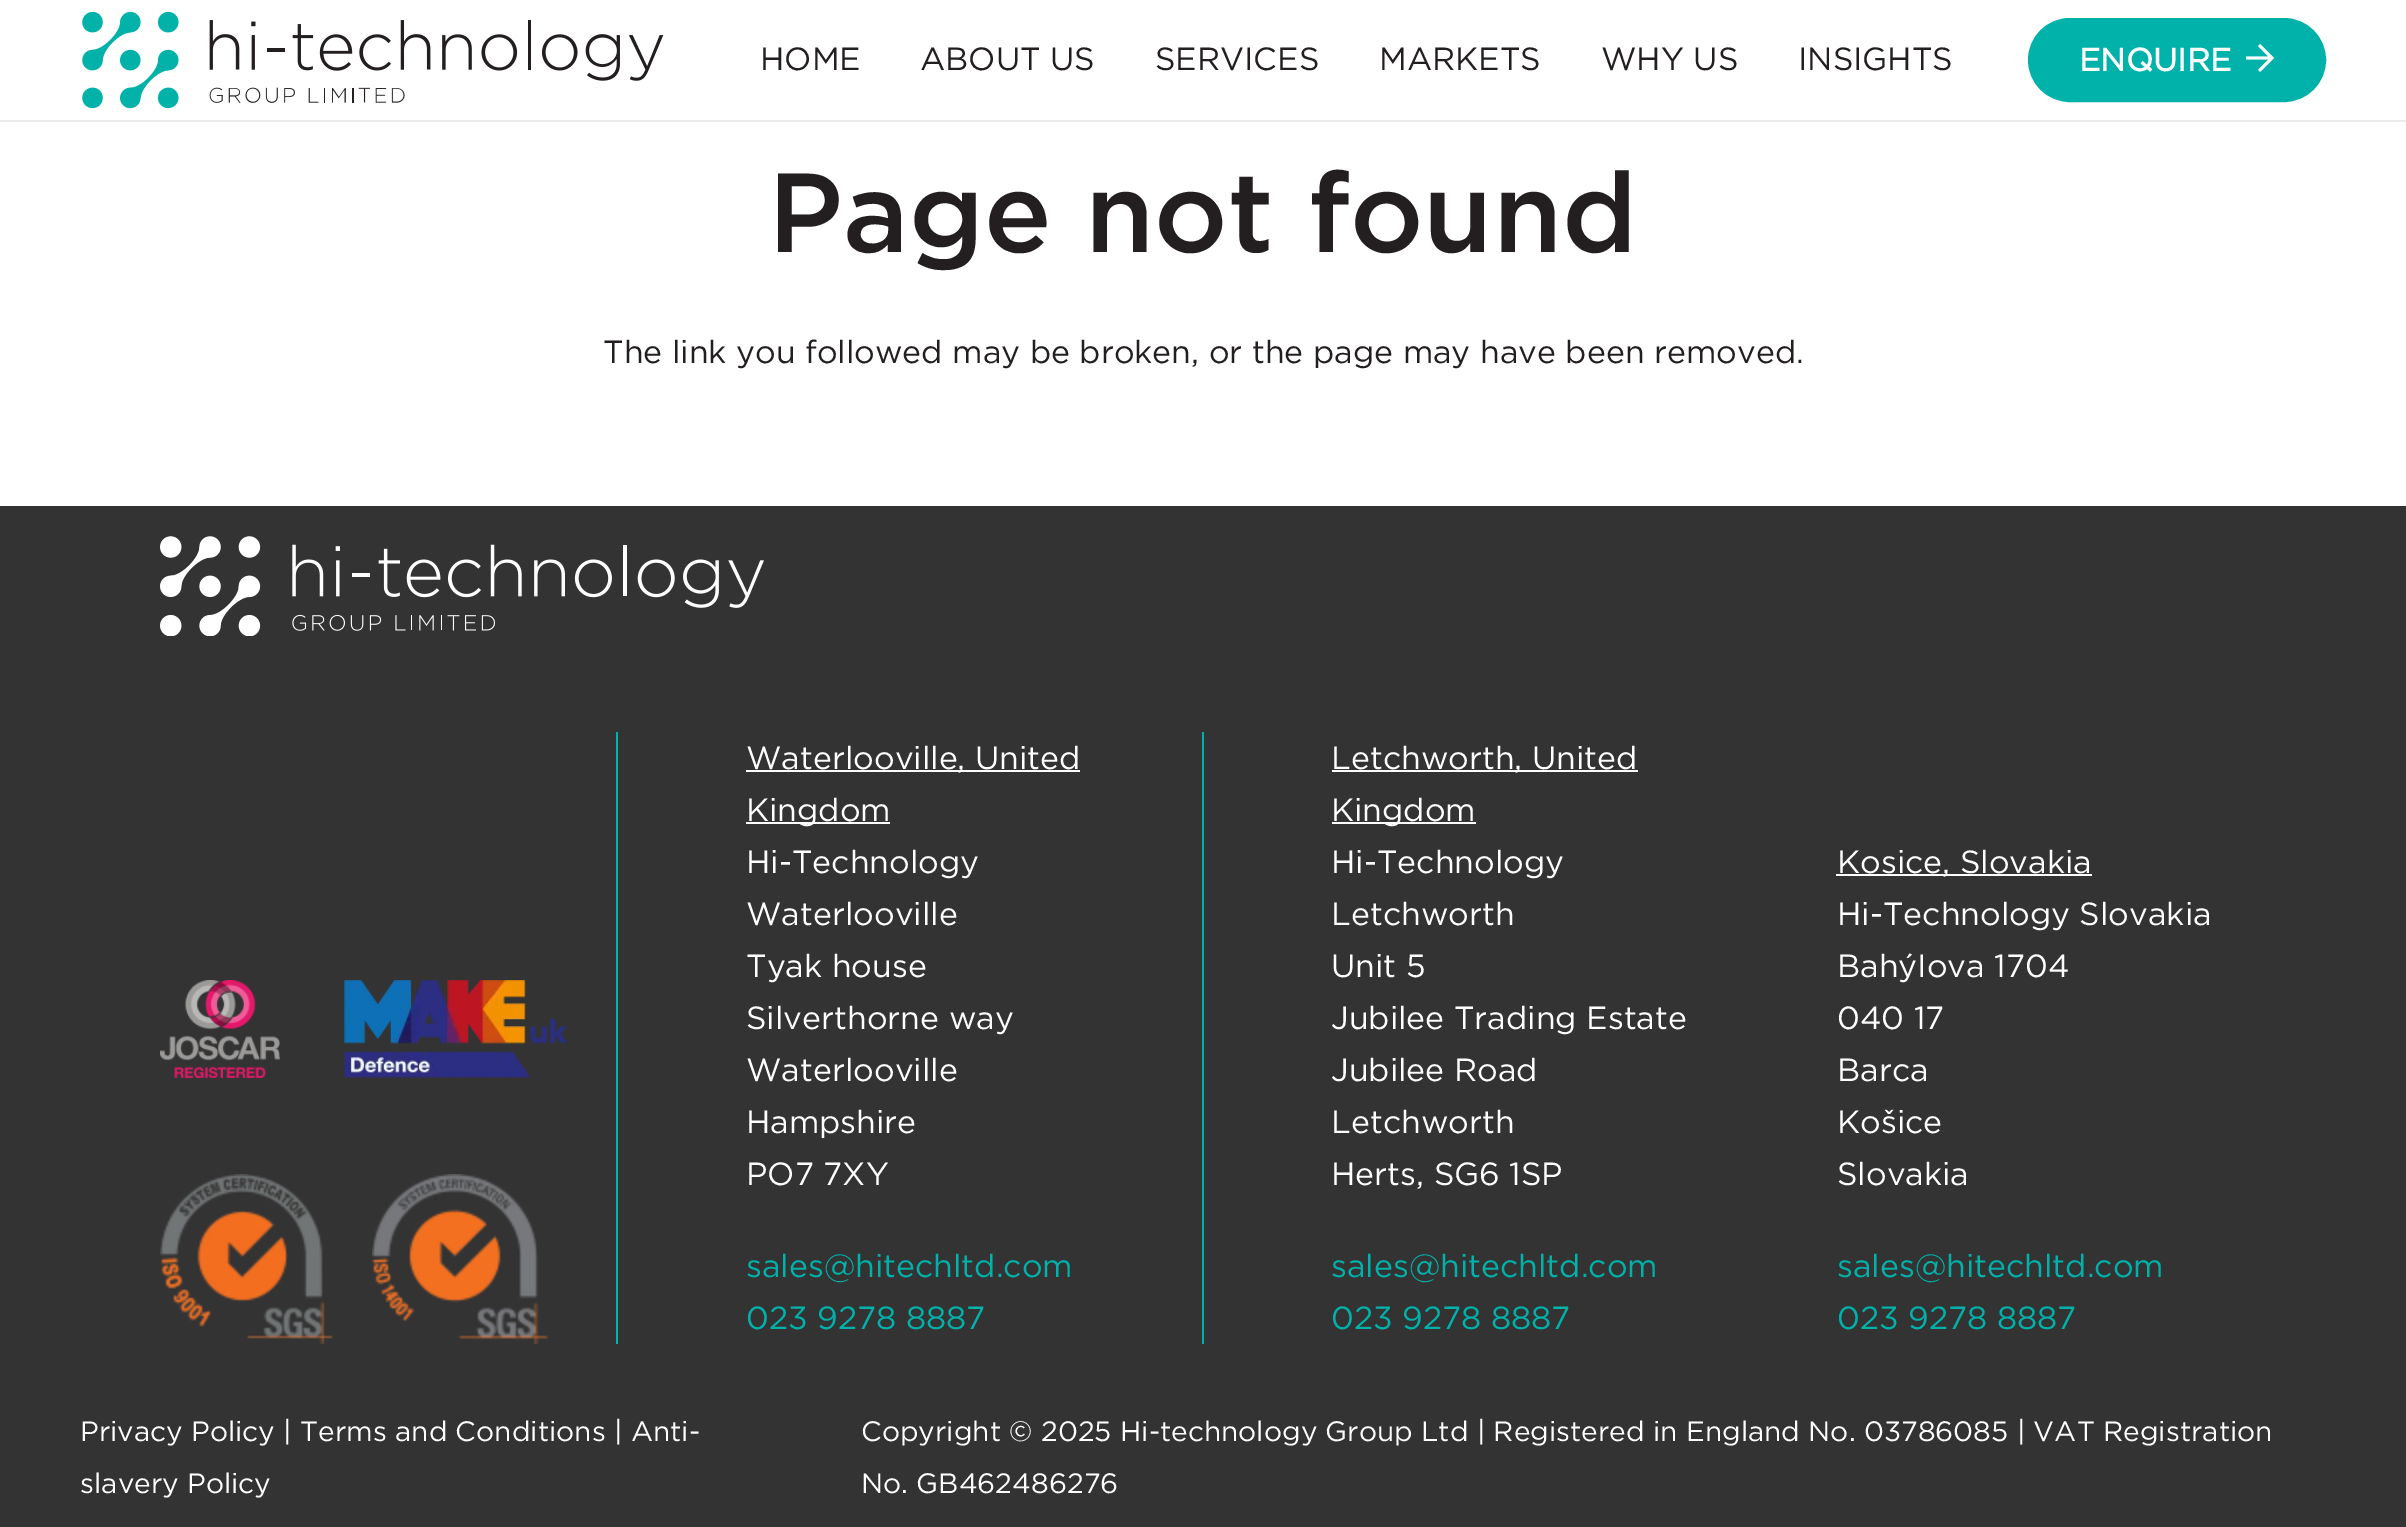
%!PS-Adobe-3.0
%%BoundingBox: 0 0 2406 1527
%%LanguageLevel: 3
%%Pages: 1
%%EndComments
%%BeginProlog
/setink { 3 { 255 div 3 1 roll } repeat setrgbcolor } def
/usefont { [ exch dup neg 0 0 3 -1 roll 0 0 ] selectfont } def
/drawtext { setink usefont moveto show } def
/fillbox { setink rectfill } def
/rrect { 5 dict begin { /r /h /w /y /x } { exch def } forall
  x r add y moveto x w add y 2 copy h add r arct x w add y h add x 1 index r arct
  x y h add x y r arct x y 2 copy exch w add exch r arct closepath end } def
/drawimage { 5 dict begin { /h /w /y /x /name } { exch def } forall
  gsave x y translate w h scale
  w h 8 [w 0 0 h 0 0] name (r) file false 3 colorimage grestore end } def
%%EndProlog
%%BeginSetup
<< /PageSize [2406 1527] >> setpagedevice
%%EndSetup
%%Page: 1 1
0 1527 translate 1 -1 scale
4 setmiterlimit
0 0 2406 1527 255 255 255 fillbox
0 120 2406 2 235 235 235 fillbox
(assets/img1.rgb) 82 11 582 98 drawimage
(HOME) 760 70 /Gotham-Regular 32 35 31 32 drawtext
(ABOUT US) 920 70 /Gotham-Regular 32 35 31 32 drawtext
(SERVICES) 1155 70 /Gotham-Regular 32 35 31 32 drawtext
(MARKETS) 1379 70 /Gotham-Regular 32 35 31 32 drawtext
(WHY US) 1601 70 /Gotham-Regular 32 35 31 32 drawtext
(INSIGHTS) 1798 70 /Gotham-Regular 32 35 31 32 drawtext
0 178 169 setink
2030 20 294 80 40 rrect gsave fill grestore
4 setlinewidth
stroke
(ENQUIRE) 2079 71 /Gotham-Bold 32 255 255 255 drawtext
(assets/img2.rgb) 2246 44 28 28 drawimage
(Page not found) 768 252 /Gotham-Medium 112 35 31 32 drawtext
(The link you followed may be broken, or the page may have been removed.) 603 363 /Gotham-Regular 32 35 31 32 drawtext
0 506 2406 1021 51 51 51 fillbox
(assets/img3.rgb) 160 536 604 100 drawimage
616 732 2 612 0 178 169 fillbox
(assets/img4.rgb) 160 980 120 98 drawimage
(assets/img5.rgb) 344 980 224 98 drawimage
(assets/img6.rgb) 160 1174 173 170 drawimage
(assets/img7.rgb) 372 1174 176 170 drawimage
1202 732 2 612 0 178 169 fillbox
746 770 334 2 255 255 255 fillbox
(Waterlooville, United) 746 769 /Gotham-Regular 32 255 255 255 drawtext
746 822 144 2 255 255 255 fillbox
(Kingdom) 746 821 /Gotham-Regular 32 255 255 255 drawtext
(Hi-Technology) 746 873 /Gotham-Regular 32 255 255 255 drawtext
(Waterlooville) 746 925 /Gotham-Regular 32 255 255 255 drawtext
(Tyak house) 746 977 /Gotham-Regular 32 255 255 255 drawtext
(Silverthorne way) 746 1029 /Gotham-Regular 32 255 255 255 drawtext
(Waterlooville) 746 1081 /Gotham-Regular 32 255 255 255 drawtext
(Hampshire) 746 1133 /Gotham-Regular 32 255 255 255 drawtext
(PO7 7XY) 746 1185 /Gotham-Regular 32 255 255 255 drawtext
(sales@hitechltd.com) 746 1277 /Gotham-Regular 32 0 178 169 drawtext
(023 9278 8887) 746 1329 /Gotham-Regular 32 0 178 169 drawtext
1332 770 306 2 255 255 255 fillbox
(Letchworth, United) 1331 769 /Gotham-Regular 32 255 255 255 drawtext
1332 822 144 2 255 255 255 fillbox
(Kingdom) 1331 821 /Gotham-Regular 32 255 255 255 drawtext
(Hi-Technology) 1331 873 /Gotham-Regular 32 255 255 255 drawtext
(Letchworth) 1331 925 /Gotham-Regular 32 255 255 255 drawtext
(Unit 5) 1331 977 /Gotham-Regular 32 255 255 255 drawtext
(Jubilee Trading Estate) 1331 1029 /Gotham-Regular 32 255 255 255 drawtext
(Jubilee Road) 1331 1081 /Gotham-Regular 32 255 255 255 drawtext
(Letchworth) 1331 1133 /Gotham-Regular 32 255 255 255 drawtext
(Herts, SG6 1SP) 1331 1185 /Gotham-Regular 32 255 255 255 drawtext
(sales@hitechltd.com) 1331 1277 /Gotham-Regular 32 0 178 169 drawtext
(023 9278 8887) 1331 1329 /Gotham-Regular 32 0 178 169 drawtext
1836 874 256 2 255 255 255 fillbox
(Kosice, Slovakia) 1837 873 /Gotham-Regular 32 255 255 255 drawtext
(Hi-Technology Slovakia) 1837 925 /Gotham-Regular 32 255 255 255 drawtext
(BahýIova 1704) 1837 977 /Gotham-Regular 32 255 255 255 drawtext
(040 17) 1837 1029 /Gotham-Regular 32 255 255 255 drawtext
(Barca) 1837 1081 /Gotham-Regular 32 255 255 255 drawtext
(Košice) 1837 1133 /Gotham-Regular 32 255 255 255 drawtext
(Slovakia) 1837 1185 /Gotham-Regular 32 255 255 255 drawtext
(sales@hitechltd.com) 1837 1277 /Gotham-Regular 32 0 178 169 drawtext
(023 9278 8887) 1837 1329 /Gotham-Regular 32 0 178 169 drawtext
(Privacy Policy | Terms and Conditions | Anti-) 80 1441 /Gotham-Regular 28 255 255 255 drawtext
(slavery Policy) 80 1493 /Gotham-Regular 28 255 255 255 drawtext
(Copyright © 2025 Hi-technology Group Ltd | Registered in England No. 03786085 | VAT Registration) 861 1441 /Gotham-Regular 28 255 255 255 drawtext
(No. GB462486276) 861 1493 /Gotham-Regular 28 255 255 255 drawtext
showpage
%%EOF
